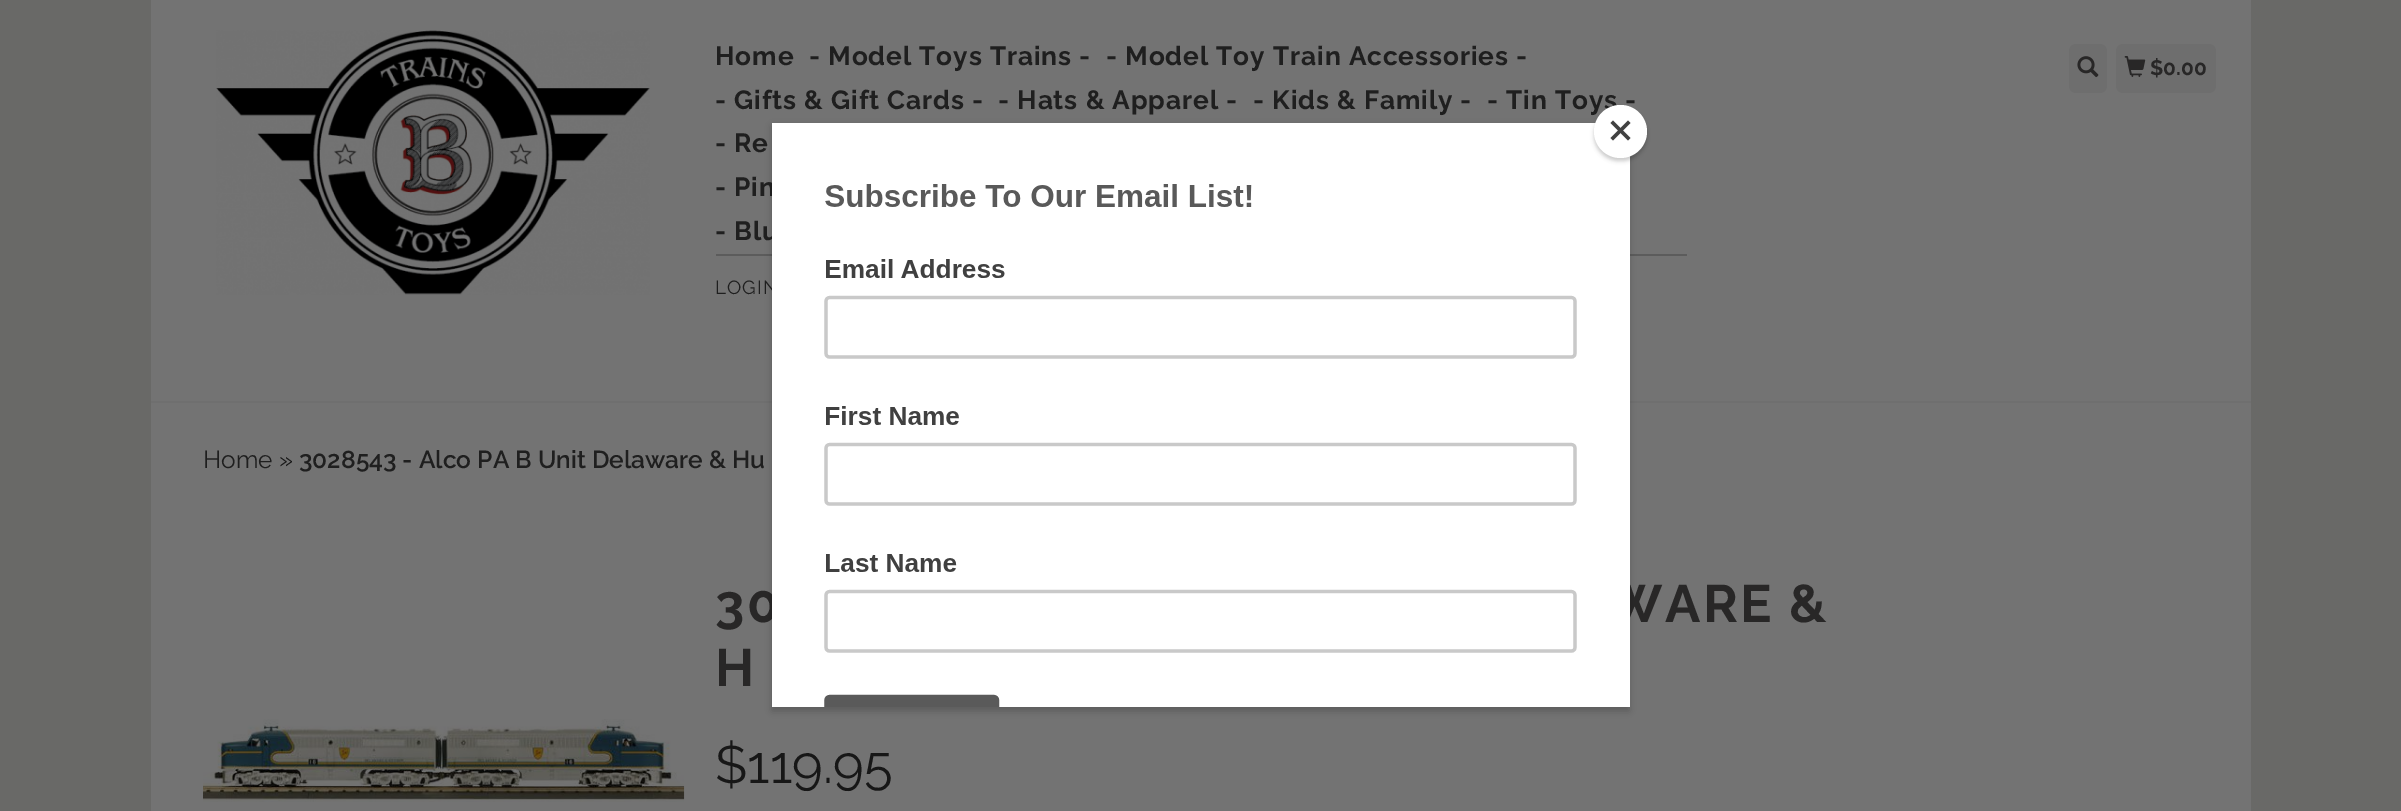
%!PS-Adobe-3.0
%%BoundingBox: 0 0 2401 811
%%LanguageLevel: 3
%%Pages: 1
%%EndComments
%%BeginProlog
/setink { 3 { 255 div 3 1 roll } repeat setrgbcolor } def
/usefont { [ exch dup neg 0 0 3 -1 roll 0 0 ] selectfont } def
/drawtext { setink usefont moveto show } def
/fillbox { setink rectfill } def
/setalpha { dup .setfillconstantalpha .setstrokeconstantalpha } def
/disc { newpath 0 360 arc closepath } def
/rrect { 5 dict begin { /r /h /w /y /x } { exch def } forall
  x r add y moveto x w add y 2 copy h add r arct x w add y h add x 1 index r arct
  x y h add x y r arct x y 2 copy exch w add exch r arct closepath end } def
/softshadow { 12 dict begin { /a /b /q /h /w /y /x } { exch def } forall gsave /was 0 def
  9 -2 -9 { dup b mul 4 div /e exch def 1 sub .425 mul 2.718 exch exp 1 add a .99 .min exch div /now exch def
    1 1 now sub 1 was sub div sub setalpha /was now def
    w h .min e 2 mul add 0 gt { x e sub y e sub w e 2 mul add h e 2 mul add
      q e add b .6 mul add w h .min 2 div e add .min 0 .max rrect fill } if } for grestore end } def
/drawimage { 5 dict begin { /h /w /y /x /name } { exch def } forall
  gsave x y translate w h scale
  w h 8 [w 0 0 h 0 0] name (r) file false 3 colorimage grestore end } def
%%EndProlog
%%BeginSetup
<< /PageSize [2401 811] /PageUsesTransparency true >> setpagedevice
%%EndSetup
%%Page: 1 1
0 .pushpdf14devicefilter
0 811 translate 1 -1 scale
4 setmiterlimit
0 0 2401 811 105 105 103 fillbox
151 0 2100 401 115 115 115 fillbox
151 401 2100 2 111 111 111 fillbox
(assets/img1.rgb) 216 30 434 265 drawimage
716 254 971 2 92 92 92 fillbox
/Raleway-Bold 26.25 usefont
31 31 31 setink
715 65 moveto 0.9 0 (Home) ashow
809 65 moveto 0.9 0 (- Model Toys Trains -) ashow
1106 65 moveto 0.9 0 (- Model Toy Train Accessories -) ashow
715 109 moveto 0.9 0 (- Gifts & Gift Cards -) ashow
998 109 moveto 0.9 0 (- Hats & Apparel -) ashow
1253 109 moveto 0.9 0 (- Kids & Family -) ashow
1487 109 moveto 0.9 0 (- Tin Toys -) ashow
715 152 moveto 0.9 0 (- Re) ashow
715 196 moveto 0.9 0 (- Pin) ashow
715 240 moveto 0.9 0 (- Blu) ashow
/Raleway-Regular 19 usefont
715 294 moveto 1 0 (LOGIN) ashow
110 110 110 setink
2069 44 38 49 7 rrect fill
(assets/img2.rgb) 2077 56 22 22 drawimage
2116 44 100 49 7 rrect fill
(assets/img3.rgb) 2124 56 22 21 drawimage
($0.00) 2150 75 /Raleway-Bold 21 40 39 39 drawtext
151 403 2100 408 115 115 115 fillbox
(Home) 203 468 /Raleway-Regular 24.5 31 31 31 drawtext
(») 279 468 /Raleway-Regular 24.5 23 23 23 drawtext
(3028543 - Alco PA B Unit Delaware & Hu) 299 468 /Raleway-SemiBold 24.5 31 31 31 drawtext
(assets/img4.rgb) 203 719 482 83 drawimage
/Raleway-Bold 52.5 usefont
40 39 39 setink
715 622 moveto 2.5 0 (30) ashow
1607 622 moveto 2.5 0 (WARE &) ashow
715 686 moveto 2.5 0 (H) ashow
($119.95) 715 783 /Raleway-Regular 52.5 23 23 23 drawtext
0 0 0 setink
772 126 857 585 0 3.5 0.2 softshadow
(assets/img5.rgb) 772 123 858 584 drawimage
1594 109 53 52 26 2 0.2 softshadow
255 255 255 setink
1620.5 131.5 26.5 disc fill
65 65 65 setink
1628 120.5 moveto 1630.5 123 lineto 1613 140.5 lineto 1610.5 138 lineto closepath fill
1610.5 123 moveto 1613 120.5 lineto 1630.5 138 lineto 1628 140.5 lineto closepath fill
.poppdf14devicefilter showpage
%%EOF
